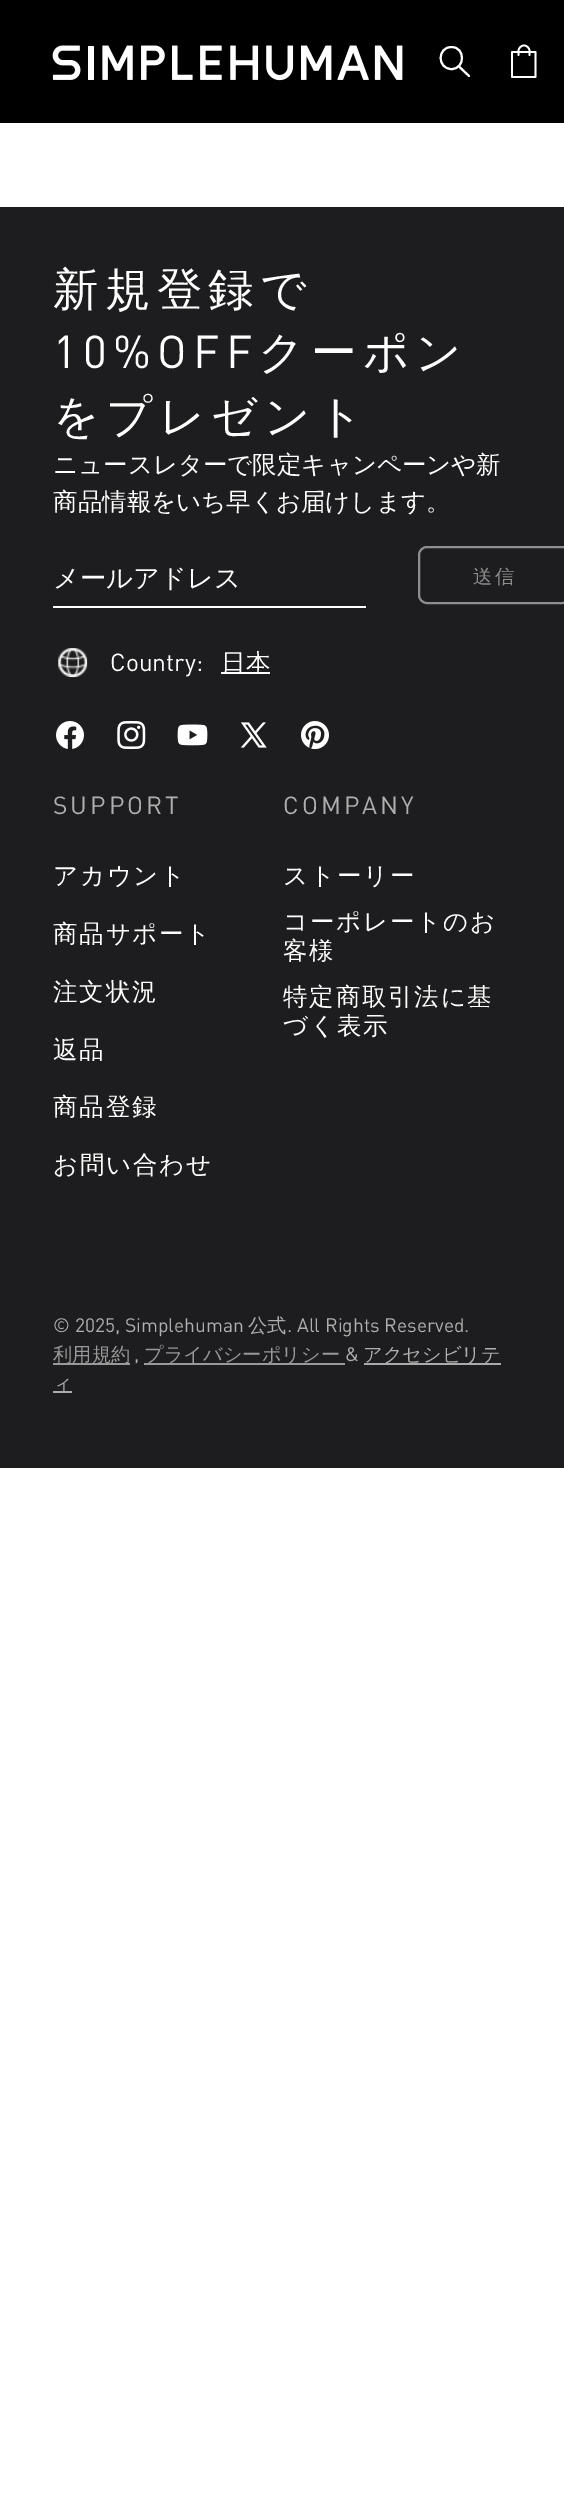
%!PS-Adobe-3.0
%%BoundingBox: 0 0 564 2518
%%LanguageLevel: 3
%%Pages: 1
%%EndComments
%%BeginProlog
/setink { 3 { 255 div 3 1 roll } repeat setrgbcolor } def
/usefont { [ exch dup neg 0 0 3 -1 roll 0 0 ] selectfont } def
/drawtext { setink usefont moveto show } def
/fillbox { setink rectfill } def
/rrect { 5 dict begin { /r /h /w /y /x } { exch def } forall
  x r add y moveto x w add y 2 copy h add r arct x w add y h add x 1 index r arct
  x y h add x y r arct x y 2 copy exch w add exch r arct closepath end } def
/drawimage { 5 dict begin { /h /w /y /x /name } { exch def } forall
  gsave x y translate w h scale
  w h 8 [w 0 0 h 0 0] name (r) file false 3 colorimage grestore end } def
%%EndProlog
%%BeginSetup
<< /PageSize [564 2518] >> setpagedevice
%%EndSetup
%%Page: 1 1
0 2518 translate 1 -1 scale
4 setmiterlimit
0 0 564 2518 255 255 255 fillbox
0 0 564 123 0 0 0 fillbox
(assets/img1.rgb) 52 45 351 36 drawimage
255 255 255 setink
2 setlinewidth
1 setlinecap
1 setlinejoin
469 76 moveto 459 66.5 lineto 451.5 69 moveto 465.5 69 465.5 47 451.5 47 curveto 437 47 437 69 451.5 69 curveto closepath stroke
254 255 255 setink
1.7 setlinewidth
535.5 52 moveto 512 52 lineto 512 77 lineto 535.5 77 lineto closepath 529.5 55 moveto 529.5 51 lineto 529.5 48 527 45.5 524 45.5 curveto 521 45.5 518.5 48 518.5 51 curveto 518.5 55 lineto stroke
0 207 564 1261 29 29 31 fillbox
/WenQuanYiZenHei-Medium 45.5 usefont
255 255 255 setink
53 305 moveto 6.25 0 (新規登録で) ashow
/DIN-Regular 45.5 usefont
53 368 moveto 6.25 0 (10%OFF) ashow
/WenQuanYiZenHei-Medium 45.5 usefont
258 368 moveto 6.25 0 (クーポン) ashow
53 432 moveto 6.25 0 (をプレゼント) ashow
(ニュースレターで限定キャンペーンや新) 53 473 /WenQuanYiZenHei-Medium 24.5 255 255 255 drawtext
(商品情報をいち早くお届けします。) 53 510 /WenQuanYiZenHei-Medium 24.5 255 255 255 drawtext
53 606 313 2 255 255 255 fillbox
(メールアドレス) 53 587 /WenQuanYiZenHei-Medium 26.25 255 255 255 drawtext
142 142 143 setink
2 setlinewidth
0 setlinecap
0 setlinejoin
419 547 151 56 8 rrect stroke
/WenQuanYiZenHei-Medium 19.25 usefont
473 583 moveto 3 0 (送信) ashow
(assets/img2.rgb) 58 648 30 30 drawimage
(Country:) 110 671 /DIN-Regular 24.5 255 255 255 drawtext
221 672 49 2 255 255 255 fillbox
(日本) 221 671 /WenQuanYiZenHei-Medium 24.5 255 255 255 drawtext
(assets/img3.rgb) 56 721 28 28 drawimage
(assets/img4.rgb) 117 721 29 28 drawimage
(assets/img5.rgb) 177 724 31 22 drawimage
(assets/img6.rgb) 240 722 27 26 drawimage
(assets/img7.rgb) 301 721 28 29 drawimage
/DIN-Regular 24.5 usefont
175 175 175 setink
53 814 moveto 3 0 (SUPPORT) ashow
/WenQuanYiZenHei-Medium 24.5 usefont
255 255 255 setink
53 884 moveto 1.75 0 (アカウント) ashow
53 942 moveto 1.75 0 (商品サポート) ashow
53 1000 moveto 1.75 0 (注文状況) ashow
53 1058 moveto 1.75 0 (返品) ashow
53 1115 moveto 1.75 0 (商品登録) ashow
53 1173 moveto 1.75 0 (お問い合わせ) ashow
/DIN-Regular 24.5 usefont
175 175 175 setink
283 814 moveto 3 0 (COMPANY) ashow
/WenQuanYiZenHei-Medium 24.5 usefont
255 255 255 setink
283 884 moveto 1.75 0 (ストーリー) ashow
283 930 moveto 1.75 0 (コーポレートのお) ashow
283 959 moveto 1.75 0 (客様) ashow
283 1005 moveto 1.75 0 (特定商取引法に基) ashow
283 1034 moveto 1.75 0 (づく表示) ashow
(© 2025, Simplehuman) 53 1332 /DIN-Regular 19.25 175 175 175 drawtext
(公式) 248 1332 /WenQuanYiZenHei-Medium 19.25 175 175 175 drawtext
(. All Rights Reserved.) 287 1332 /DIN-Regular 19.25 175 175 175 drawtext
53 1363 77 2 153 153 153 fillbox
(利用規約) 53 1361 /WenQuanYiZenHei-Medium 19.25 153 153 153 drawtext
(,) 134 1361 /DIN-Regular 19.25 175 175 175 drawtext
144 1363 201 2 153 153 153 fillbox
(プライバシーポリシー) 144 1361 /WenQuanYiZenHei-Medium 19.25 153 153 153 drawtext
(&) 345 1361 /DIN-Regular 19.25 175 175 175 drawtext
364 1363 137 2 170 170 170 fillbox
(アクセシビリテ) 363 1361 /WenQuanYiZenHei-Medium 19.25 175 175 175 drawtext
53 1391 19 2 170 170 170 fillbox
(ィ) 53 1390 /WenQuanYiZenHei-Medium 19.25 175 175 175 drawtext
showpage
%%EOF
